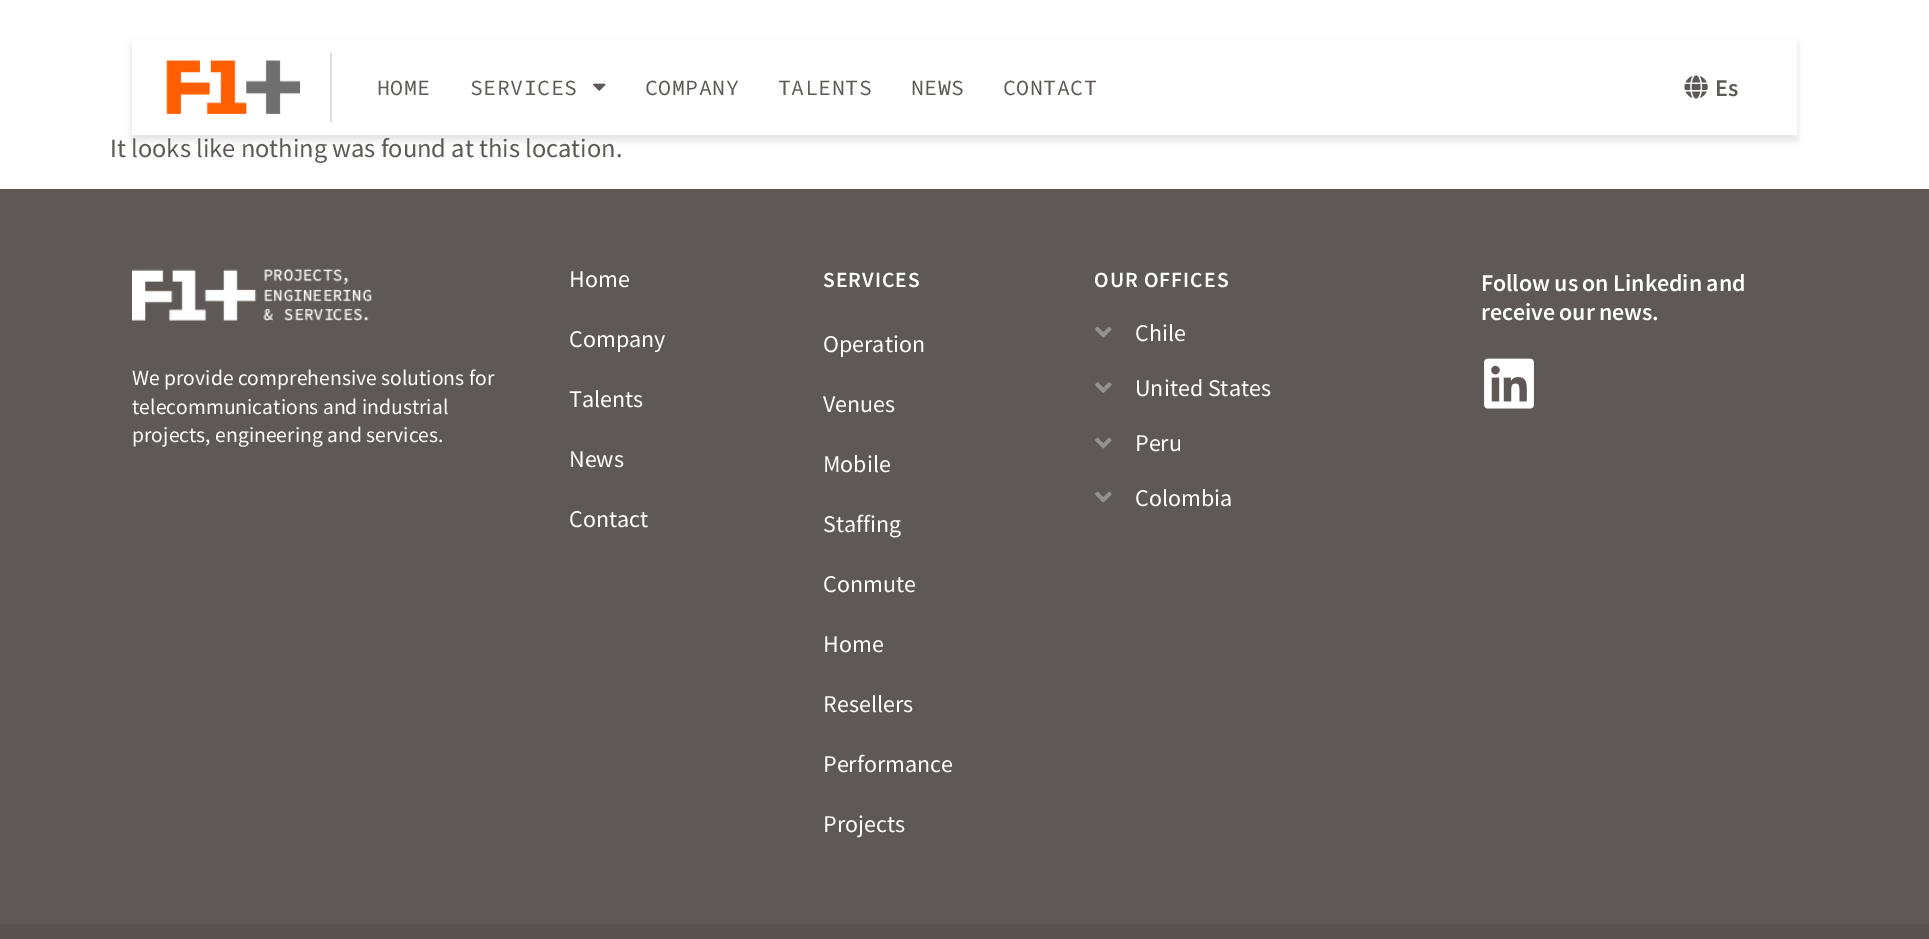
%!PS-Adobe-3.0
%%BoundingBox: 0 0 1929 939
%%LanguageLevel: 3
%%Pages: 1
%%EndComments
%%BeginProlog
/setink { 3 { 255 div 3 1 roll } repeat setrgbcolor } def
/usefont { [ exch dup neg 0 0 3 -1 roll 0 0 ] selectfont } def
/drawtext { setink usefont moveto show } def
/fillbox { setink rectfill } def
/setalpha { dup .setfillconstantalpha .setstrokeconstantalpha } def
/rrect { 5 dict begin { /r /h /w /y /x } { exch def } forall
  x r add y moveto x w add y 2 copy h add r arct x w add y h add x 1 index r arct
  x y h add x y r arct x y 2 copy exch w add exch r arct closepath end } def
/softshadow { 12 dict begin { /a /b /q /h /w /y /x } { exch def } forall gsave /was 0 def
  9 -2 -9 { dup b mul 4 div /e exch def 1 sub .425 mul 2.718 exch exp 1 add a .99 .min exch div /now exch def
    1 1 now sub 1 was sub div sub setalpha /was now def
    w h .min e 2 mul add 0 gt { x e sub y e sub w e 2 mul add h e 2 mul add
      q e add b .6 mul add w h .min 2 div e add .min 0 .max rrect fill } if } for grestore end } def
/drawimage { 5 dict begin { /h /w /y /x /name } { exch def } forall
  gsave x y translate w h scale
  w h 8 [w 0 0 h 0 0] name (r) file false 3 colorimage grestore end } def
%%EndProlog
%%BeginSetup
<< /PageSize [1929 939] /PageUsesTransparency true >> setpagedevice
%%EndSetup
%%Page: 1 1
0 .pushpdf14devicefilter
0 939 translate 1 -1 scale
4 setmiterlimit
0 0 1929 939 255 255 255 fillbox
190 190 190 setink
132 44 1665 96 0 4.5 0.48 softshadow
132 39 1665 96 255 255 255 fillbox
(assets/img1.rgb) 166 60 134 54 drawimage
330 53 2 69 221 221 221 fillbox
/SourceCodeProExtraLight-Regular 21.6 usefont
94 89 86 setink
377 95 moveto 0.5 0 (HOME) ashow
470 95 moveto 0.5 0 (SERVICES) ashow
(assets/img2.rgb) 593 83 13 8 drawimage
645 95 moveto 0.5 0 (COMPANY) ashow
778 95 moveto 0.5 0 (TALENTS) ashow
911 95 moveto 0.5 0 (NEWS) ashow
1003 95 moveto 0.5 0 (CONTACT) ashow
(assets/img3.rgb) 1684 75 24 24 drawimage
(Es) 1715 96 /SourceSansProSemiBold-SemiBold 24 94 89 86 drawtext
(It looks like nothing was found at this location.) 110 157 /SourceSansPro-Regular 26.4 94 89 86 drawtext
0 189 1929 735 94 89 86 fillbox
(Home) 569 287 /SourceSansPro-Regular 24 255 255 255 drawtext
(Company) 569 347 /SourceSansPro-Regular 24 255 255 255 drawtext
(Talents) 569 407 /SourceSansPro-Regular 24 255 255 255 drawtext
(News) 569 467 /SourceSansPro-Regular 24 255 255 255 drawtext
(Contact) 569 527 /SourceSansPro-Regular 24 255 255 255 drawtext
/SourceSansProSemiBold-SemiBold 21.6 usefont
823 287 moveto 1 0 (SERVICES) ashow
(Operation) 823 352 /SourceSansPro-Regular 24 255 255 255 drawtext
(Venues) 823 412 /SourceSansPro-Regular 24 255 255 255 drawtext
(Mobile) 823 472 /SourceSansPro-Regular 24 255 255 255 drawtext
(Staffing) 823 532 /SourceSansPro-Regular 24 255 255 255 drawtext
(Conmute) 823 592 /SourceSansPro-Regular 24 255 255 255 drawtext
(Home) 823 652 /SourceSansPro-Regular 24 255 255 255 drawtext
(Resellers) 823 712 /SourceSansPro-Regular 24 255 255 255 drawtext
(Performance) 823 772 /SourceSansPro-Regular 24 255 255 255 drawtext
(Projects) 823 832 /SourceSansPro-Regular 24 255 255 255 drawtext
/SourceSansProSemiBold-SemiBold 21.6 usefont
1094 287 moveto 1 0 (OUR OFFICES) ashow
(assets/img4.rgb) 1095 326 17 12 drawimage
(Chile) 1135 341 /SourceSansPro-Regular 24 255 255 255 drawtext
(assets/img5.rgb) 1095 382 17 11 drawimage
(United States) 1135 396 /SourceSansPro-Regular 24 255 255 255 drawtext
(assets/img4.rgb) 1095 437 17 12 drawimage
(Peru) 1135 451 /SourceSansPro-Regular 24 255 255 255 drawtext
(assets/img4.rgb) 1095 491 17 12 drawimage
(Colombia) 1135 506 /SourceSansPro-Regular 24 255 255 255 drawtext
/SourceSansProSemiBold-SemiBold 24 usefont
1481 291 moveto -0.15 0 (Follow us on Linkedin and) ashow
1481 320 moveto -0.15 0 (receive our news.) ashow
(assets/img6.rgb) 1484 358 50 51 drawimage
(assets/img7.rgb) 132 268 240 53 drawimage
(We provide comprehensive solutions for) 132 385 /SourceSansPro-Regular 21.6 255 255 255 drawtext
(telecommunications and industrial) 132 414 /SourceSansPro-Regular 21.6 255 255 255 drawtext
(projects, engineering and services.) 132 442 /SourceSansPro-Regular 21.6 255 255 255 drawtext
0 924 1929 15 87 82 79 fillbox
.poppdf14devicefilter showpage
%%EOF
